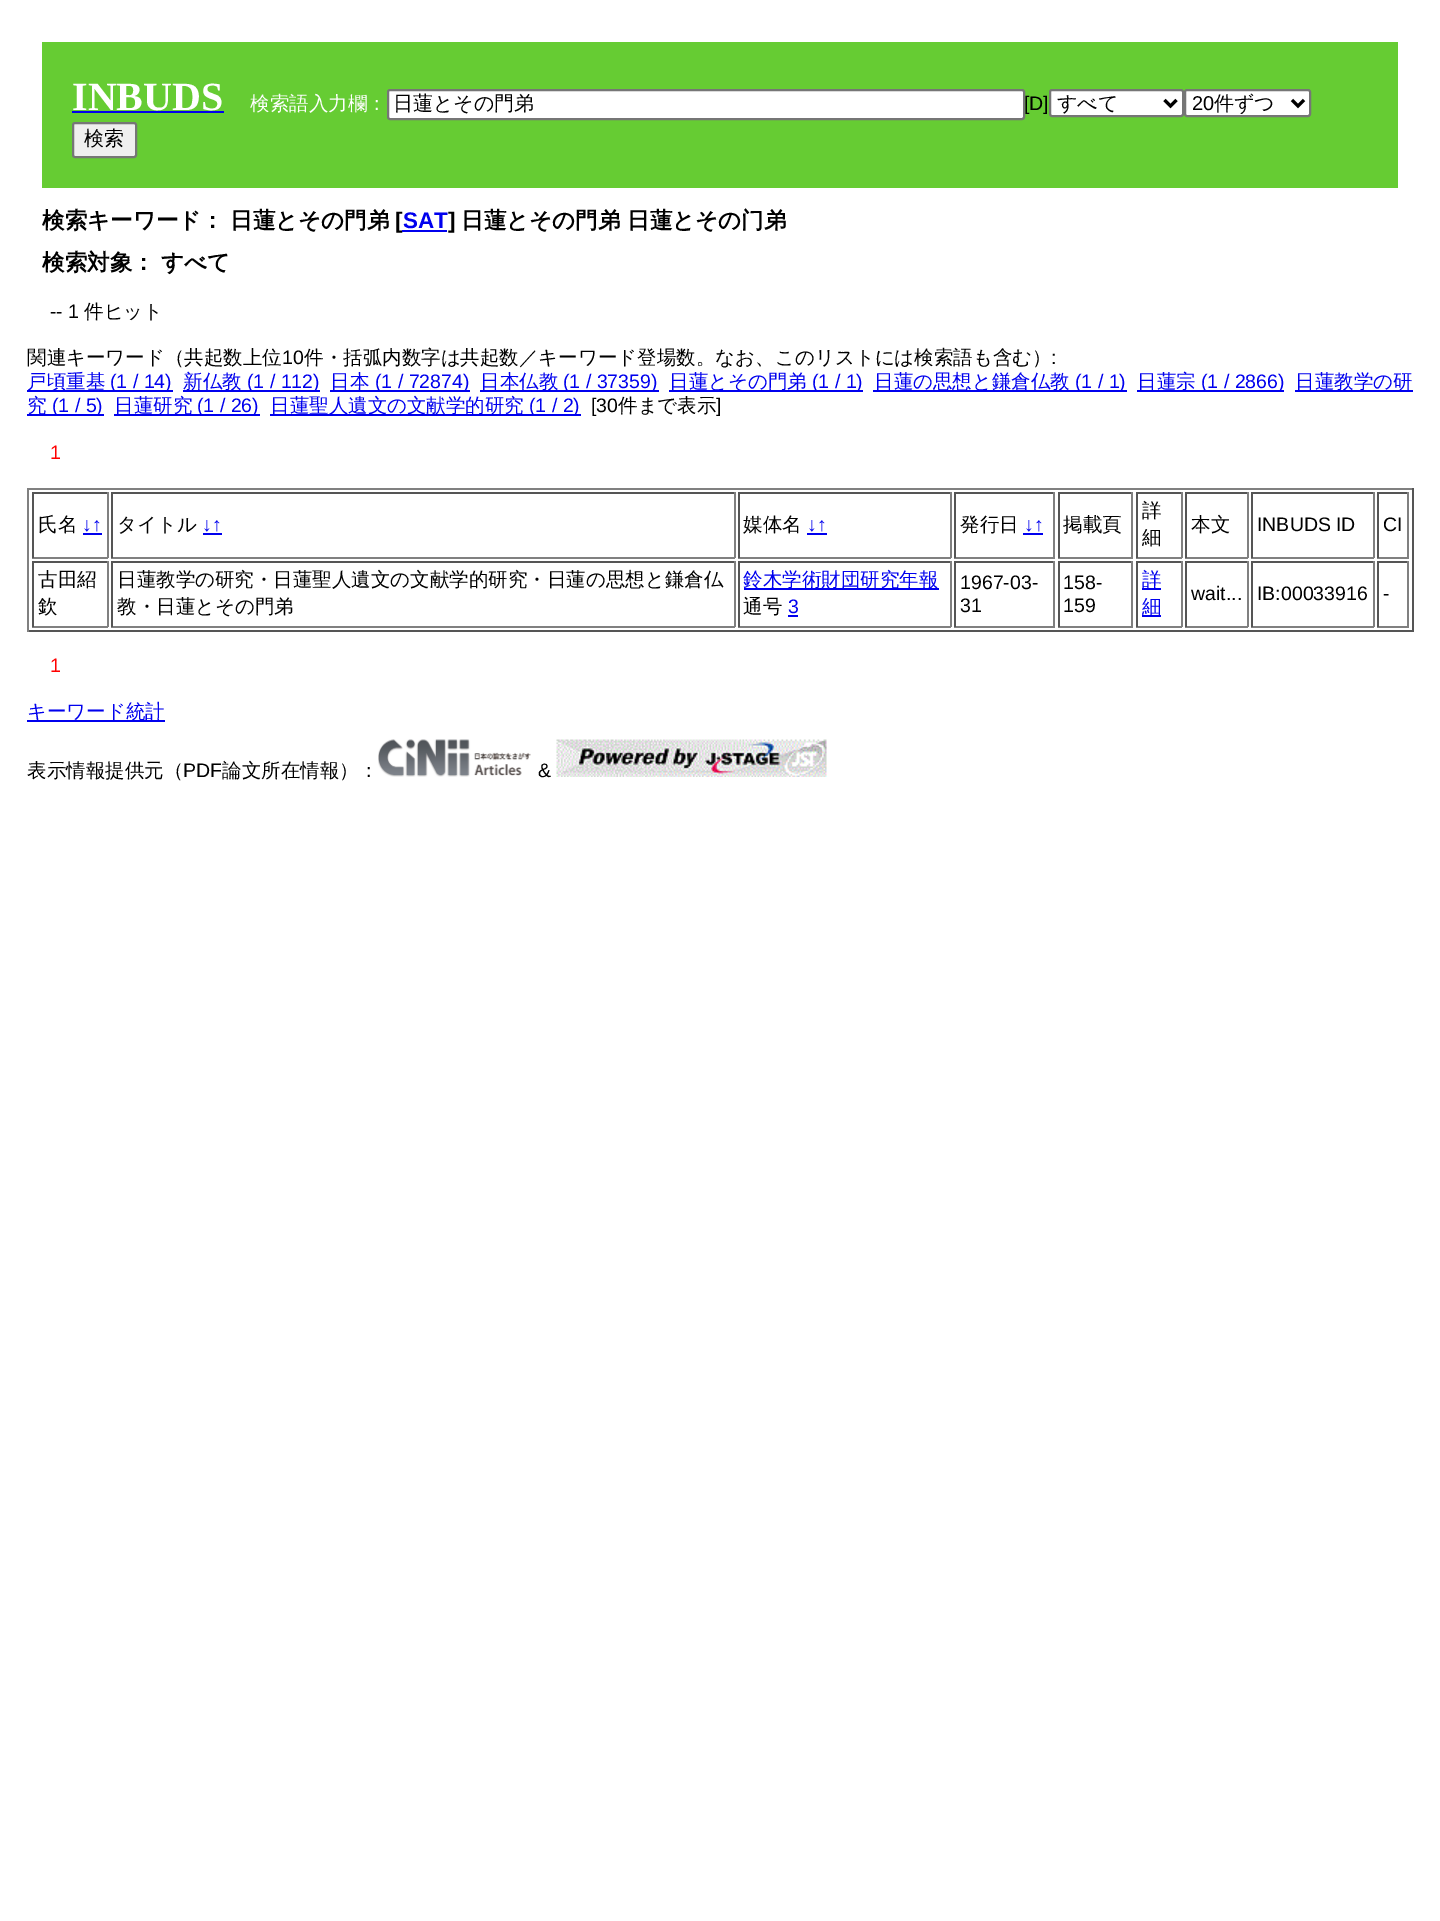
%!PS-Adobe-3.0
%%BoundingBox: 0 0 1440 1921
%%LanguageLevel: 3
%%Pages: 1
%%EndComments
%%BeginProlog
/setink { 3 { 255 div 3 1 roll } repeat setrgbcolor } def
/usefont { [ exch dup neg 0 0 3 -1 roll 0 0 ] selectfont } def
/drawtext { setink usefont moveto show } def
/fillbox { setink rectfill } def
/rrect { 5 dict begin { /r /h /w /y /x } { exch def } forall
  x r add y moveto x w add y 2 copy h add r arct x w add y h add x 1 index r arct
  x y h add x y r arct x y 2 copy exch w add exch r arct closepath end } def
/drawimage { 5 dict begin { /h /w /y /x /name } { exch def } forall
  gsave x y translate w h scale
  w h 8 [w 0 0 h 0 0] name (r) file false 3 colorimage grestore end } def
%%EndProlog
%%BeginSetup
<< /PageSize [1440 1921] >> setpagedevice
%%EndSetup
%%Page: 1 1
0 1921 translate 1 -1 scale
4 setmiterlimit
0 0 1440 1921 255 255 255 fillbox
42 42 1356 146 102 204 51 fillbox
(INBUDS) 72 110 /LiberationSerif-Bold 40 255 255 255 drawtext
72 111 152 2 0 0 238 fillbox
(検索語入力欄：) 250 110 /WenQuanYiZenHei-Medium 19.5 255 255 255 drawtext
388 90 636 29 2 rrect gsave fill grestore
118 118 118 setink
2 setlinewidth
stroke
(日蓮とその門弟) 393 110 /WenQuanYiZenHei-Medium 20 0 0 0 drawtext
([D]) 1024 110 /LiberationSans-Regular 19.5 0 0 0 drawtext
255 255 255 setink
1050 90 133 26 2 rrect gsave fill grestore
118 118 118 setink
stroke
0 0 0 setink
3 setlinewidth
1164.5 100 moveto 1170.5 106 lineto 1176.5 100 lineto stroke
(すべて) 1057 110 /WenQuanYiZenHei-Medium 20 0 0 0 drawtext
255 255 255 setink
1185 90 125 26 2 rrect gsave fill grestore
118 118 118 setink
2 setlinewidth
stroke
0 0 0 setink
3 setlinewidth
1292 100 moveto 1298 106 lineto 1304 100 lineto stroke
(20) 1192 110 /LiberationSans-Regular 20 0 0 0 drawtext
(件ずつ) 1214 110 /WenQuanYiZenHei-Medium 20 0 0 0 drawtext
239 239 239 setink
73 123 63 34 2 rrect gsave fill grestore
118 118 118 setink
2 setlinewidth
stroke
(検索) 84 145 /WenQuanYiZenHei-Medium 20 0 0 0 drawtext
(検索キーワード： 日蓮とその門弟) 42 228 /WenQuanYiZenHei-Bold 22.5 0 0 0 drawtext
([) 395 228 /LiberationSans-Bold 22.5 0 0 0 drawtext
(SAT) 403 228 /LiberationSans-Bold 22.5 0 0 238 drawtext
402 230 45 2 0 0 238 fillbox
(]) 448 228 /LiberationSans-Bold 22.5 0 0 0 drawtext
(日蓮とその門弟) 461 228 /WenQuanYiZenHei-Bold 22.5 0 0 0 drawtext
(日蓮とその门弟) 627 228 /WenQuanYiZenHei-Bold 22.5 0 0 0 drawtext
(検索対象： すべて) 42 270 /WenQuanYiZenHei-Bold 22.5 0 0 0 drawtext
(-- 1) 50 318 /LiberationSans-Regular 19.5 0 0 0 drawtext
(件ヒット) 84 318 /WenQuanYiZenHei-Medium 19.5 0 0 0 drawtext
(関連キーワード（共起数上位) 27 364 /WenQuanYiZenHei-Medium 19.5 0 0 0 drawtext
(10) 282 364 /LiberationSans-Regular 19.5 0 0 0 drawtext
(件・括弧内数字は共起数／キーワード登場数。なお、このリストには検索語も含む）) 304 364 /WenQuanYiZenHei-Medium 19.5 0 0 0 drawtext
(:) 1051 364 /LiberationSans-Regular 19.5 0 0 0 drawtext
27 390 146 2 0 0 238 fillbox
(戸頃重基) 27 388 /WenQuanYiZenHei-Medium 19.5 0 0 238 drawtext
(\(1 / 14\)) 110 388 /LiberationSans-Regular 19.5 0 0 238 drawtext
183 390 137 2 0 0 238 fillbox
(新仏教) 183 388 /WenQuanYiZenHei-Medium 19.5 0 0 238 drawtext
(\(1 / 112\)) 247 388 /LiberationSans-Regular 19.5 0 0 238 drawtext
330 390 140 2 0 0 238 fillbox
(日本) 330 388 /WenQuanYiZenHei-Medium 19.5 0 0 238 drawtext
(\(1 / 72874\)) 375 388 /LiberationSans-Regular 19.5 0 0 238 drawtext
480 390 179 2 0 0 238 fillbox
(日本仏教) 480 388 /WenQuanYiZenHei-Medium 19.5 0 0 238 drawtext
(\(1 / 37359\)) 563 388 /LiberationSans-Regular 19.5 0 0 238 drawtext
669 390 194 2 0 0 238 fillbox
(日蓮とその門弟) 669 388 /WenQuanYiZenHei-Medium 19.5 0 0 238 drawtext
(\(1 / 1\)) 812 388 /LiberationSans-Regular 19.5 0 0 238 drawtext
873 390 254 2 0 0 238 fillbox
(日蓮の思想と鎌倉仏教) 874 388 /WenQuanYiZenHei-Medium 19.5 0 0 238 drawtext
(\(1 / 1\)) 1075 388 /LiberationSans-Regular 19.5 0 0 238 drawtext
1137 390 147 2 0 0 238 fillbox
(日蓮宗) 1137 388 /WenQuanYiZenHei-Medium 19.5 0 0 238 drawtext
(\(1 / 2866\)) 1201 388 /LiberationSans-Regular 19.5 0 0 238 drawtext
1295 390 118 2 0 0 238 fillbox
(日蓮教学の研) 1295 388 /WenQuanYiZenHei-Medium 19.5 0 0 238 drawtext
27 414 77 2 0 0 238 fillbox
(究) 27 412 /WenQuanYiZenHei-Medium 19.5 0 0 238 drawtext
(\(1 / 5\)) 52 412 /LiberationSans-Regular 19.5 0 0 238 drawtext
114 414 146 2 0 0 238 fillbox
(日蓮研究) 114 412 /WenQuanYiZenHei-Medium 19.5 0 0 238 drawtext
(\(1 / 26\)) 197 412 /LiberationSans-Regular 19.5 0 0 238 drawtext
270 414 311 2 0 0 238 fillbox
(日蓮聖人遺文の文献学的研究) 270 412 /WenQuanYiZenHei-Medium 19.5 0 0 238 drawtext
(\(1 / 2\)) 529 412 /LiberationSans-Regular 19.5 0 0 238 drawtext
([30) 591 412 /LiberationSans-Regular 19.5 0 0 0 drawtext
(件まで表示) 618 412 /WenQuanYiZenHei-Medium 19.5 0 0 0 drawtext
(]) 716 412 /LiberationSans-Regular 19.5 0 0 0 drawtext
(1) 50 459 /LiberationSans-Regular 19.5 255 0 0 drawtext
27 488 1386 2 128 128 128 fillbox
1412 488 2 144 85 85 85 fillbox
27 630 1386 2 85 85 85 fillbox
27 488 2 144 128 128 128 fillbox
32 492 76 2 85 85 85 fillbox
107 492 2 66 128 128 128 fillbox
32 557 76 2 128 128 128 fillbox
32 492 2 66 85 85 85 fillbox
(氏名) 38 531 /WenQuanYiZenHei-Medium 19.5 0 0 0 drawtext
(↓↑) 82 531 /LiberationSans-Regular 19.5 0 0 238 drawtext
83 533 19 2 0 0 238 fillbox
111 492 624 2 85 85 85 fillbox
734 492 2 66 128 128 128 fillbox
111 557 624 2 128 128 128 fillbox
111 492 2 66 85 85 85 fillbox
(タイトル) 117 531 /WenQuanYiZenHei-Medium 19.5 0 0 0 drawtext
(↓↑) 202 531 /LiberationSans-Regular 19.5 0 0 238 drawtext
203 533 19 2 0 0 238 fillbox
738 492 213 2 85 85 85 fillbox
950 492 2 66 128 128 128 fillbox
738 557 213 2 128 128 128 fillbox
738 492 2 66 85 85 85 fillbox
(媒体名) 743 531 /WenQuanYiZenHei-Medium 19.5 0 0 0 drawtext
(↓↑) 807 531 /LiberationSans-Regular 19.5 0 0 238 drawtext
807 533 20 2 0 0 238 fillbox
954 492 101 2 85 85 85 fillbox
1053 492 2 66 128 128 128 fillbox
954 557 101 2 128 128 128 fillbox
954 492 2 66 85 85 85 fillbox
(発行日) 960 531 /WenQuanYiZenHei-Medium 19.5 0 0 0 drawtext
(↓↑) 1024 531 /LiberationSans-Regular 19.5 0 0 238 drawtext
1023 533 20 2 0 0 238 fillbox
1058 492 75 2 85 85 85 fillbox
1131 492 2 66 128 128 128 fillbox
1058 557 75 2 128 128 128 fillbox
1058 492 2 66 85 85 85 fillbox
(掲載頁) 1063 531 /WenQuanYiZenHei-Medium 19.5 0 0 0 drawtext
1136 492 46 2 85 85 85 fillbox
1181 492 2 66 128 128 128 fillbox
1136 557 46 2 128 128 128 fillbox
1136 492 2 66 85 85 85 fillbox
(詳) 1142 517 /WenQuanYiZenHei-Medium 19.5 0 0 0 drawtext
(細) 1142 544 /WenQuanYiZenHei-Medium 19.5 0 0 0 drawtext
1185 492 63 2 85 85 85 fillbox
1247 492 2 66 128 128 128 fillbox
1185 557 63 2 128 128 128 fillbox
1185 492 2 66 85 85 85 fillbox
(本文) 1191 531 /WenQuanYiZenHei-Medium 19.5 0 0 0 drawtext
1251 492 123 2 85 85 85 fillbox
1373 492 2 66 128 128 128 fillbox
1251 557 123 2 128 128 128 fillbox
1251 492 2 66 85 85 85 fillbox
(INBUDS ID) 1257 531 /LiberationSans-Regular 19.5 0 0 0 drawtext
1377 492 32 2 85 85 85 fillbox
1407 492 2 66 128 128 128 fillbox
1377 557 32 2 128 128 128 fillbox
1377 492 2 66 85 85 85 fillbox
(CI) 1383 531 /LiberationSans-Regular 19.5 0 0 0 drawtext
32 561 76 2 85 85 85 fillbox
107 561 2 66 128 128 128 fillbox
32 626 76 2 128 128 128 fillbox
32 561 2 66 85 85 85 fillbox
(古田紹) 38 586 /WenQuanYiZenHei-Medium 19.5 0 0 0 drawtext
(欽) 38 613 /WenQuanYiZenHei-Medium 19.5 0 0 0 drawtext
111 561 624 2 85 85 85 fillbox
734 561 2 66 128 128 128 fillbox
111 626 624 2 128 128 128 fillbox
111 561 2 66 85 85 85 fillbox
(日蓮教学の研究・日蓮聖人遺文の文献学的研究・日蓮の思想と鎌倉仏) 117 586 /WenQuanYiZenHei-Medium 19.5 0 0 0 drawtext
(教・日蓮とその門弟) 117 613 /WenQuanYiZenHei-Medium 19.5 0 0 0 drawtext
738 561 213 2 85 85 85 fillbox
950 561 2 66 128 128 128 fillbox
738 626 213 2 128 128 128 fillbox
738 561 2 66 85 85 85 fillbox
744 588 195 2 0 0 238 fillbox
(鈴木学術財団研究年報) 743 586 /WenQuanYiZenHei-Medium 19.5 0 0 238 drawtext
(通号) 743 613 /WenQuanYiZenHei-Medium 19.5 0 0 0 drawtext
(3) 788 613 /LiberationSans-Regular 19.5 0 0 238 drawtext
788 615 10 2 0 0 238 fillbox
954 561 101 2 85 85 85 fillbox
1053 561 2 66 128 128 128 fillbox
954 626 101 2 128 128 128 fillbox
954 561 2 66 85 85 85 fillbox
(1967-03-) 960 589 /LiberationSans-Regular 19.5 0 0 0 drawtext
(31) 960 612 /LiberationSans-Regular 19.5 0 0 0 drawtext
1058 561 75 2 85 85 85 fillbox
1131 561 2 66 128 128 128 fillbox
1058 626 75 2 128 128 128 fillbox
1058 561 2 66 85 85 85 fillbox
(158-) 1063 589 /LiberationSans-Regular 19.5 0 0 0 drawtext
(159) 1063 612 /LiberationSans-Regular 19.5 0 0 0 drawtext
1136 561 46 2 85 85 85 fillbox
1181 561 2 66 128 128 128 fillbox
1136 626 46 2 128 128 128 fillbox
1136 561 2 66 85 85 85 fillbox
1142 588 19 2 0 0 238 fillbox
(詳) 1142 586 /WenQuanYiZenHei-Medium 19.5 0 0 238 drawtext
1142 615 19 2 0 0 238 fillbox
(細) 1142 613 /WenQuanYiZenHei-Medium 19.5 0 0 238 drawtext
1185 561 63 2 85 85 85 fillbox
1247 561 2 66 128 128 128 fillbox
1185 626 63 2 128 128 128 fillbox
1185 561 2 66 85 85 85 fillbox
(wait...) 1191 600 /LiberationSans-Regular 19.5 0 0 0 drawtext
1251 561 123 2 85 85 85 fillbox
1373 561 2 66 128 128 128 fillbox
1251 626 123 2 128 128 128 fillbox
1251 561 2 66 85 85 85 fillbox
(IB:00033916) 1257 600 /LiberationSans-Regular 19.5 0 0 0 drawtext
1377 561 32 2 85 85 85 fillbox
1407 561 2 66 128 128 128 fillbox
1377 626 32 2 128 128 128 fillbox
1377 561 2 66 85 85 85 fillbox
(-) 1383 600 /LiberationSans-Regular 19.5 0 0 0 drawtext
(1) 50 672 /LiberationSans-Regular 19.5 255 0 0 drawtext
27 720 138 2 0 0 238 fillbox
(キーワード統計) 27 718 /WenQuanYiZenHei-Medium 19.5 0 0 238 drawtext
(表示情報提供元（) 27 777 /WenQuanYiZenHei-Medium 19.5 0 0 0 drawtext
(PDF) 183 777 /LiberationSans-Regular 19.5 0 0 0 drawtext
(論文所在情報）：) 222 777 /WenQuanYiZenHei-Medium 19.5 0 0 0 drawtext
(assets/img1.rgb) 378 739 153 38 drawimage
(&) 538 777 /LiberationSans-Regular 19.5 0 0 0 drawtext
(assets/img2.rgb) 556 739 271 38 drawimage
showpage
%%EOF
